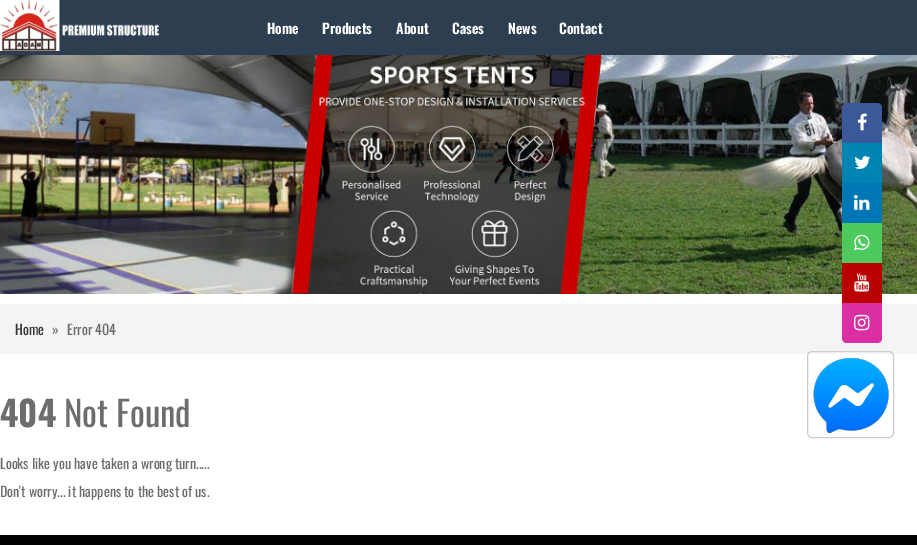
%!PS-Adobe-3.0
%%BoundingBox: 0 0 917 545
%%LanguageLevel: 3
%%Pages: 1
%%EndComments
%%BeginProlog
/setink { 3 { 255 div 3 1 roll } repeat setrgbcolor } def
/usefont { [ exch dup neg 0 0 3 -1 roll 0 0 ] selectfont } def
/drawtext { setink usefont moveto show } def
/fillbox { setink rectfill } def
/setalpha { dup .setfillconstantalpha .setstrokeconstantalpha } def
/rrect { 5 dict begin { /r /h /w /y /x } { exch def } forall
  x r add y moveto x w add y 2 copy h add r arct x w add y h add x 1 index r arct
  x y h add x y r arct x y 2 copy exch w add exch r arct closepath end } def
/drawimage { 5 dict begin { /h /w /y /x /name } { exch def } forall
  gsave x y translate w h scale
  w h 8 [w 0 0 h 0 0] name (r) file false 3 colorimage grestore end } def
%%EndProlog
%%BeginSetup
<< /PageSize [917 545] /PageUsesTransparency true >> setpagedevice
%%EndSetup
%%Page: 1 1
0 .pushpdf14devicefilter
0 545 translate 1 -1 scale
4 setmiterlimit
0 0 917 545 255 255 255 fillbox
0 0 917 55 44 62 80 fillbox
(assets/img1.rgb) 0 0 160 51 drawimage
(Home) 267 34 /Oswald-SemiBold 14 255 255 255 drawtext
(Products) 322 34 /Oswald-SemiBold 14 255 255 255 drawtext
(About) 396 34 /Oswald-SemiBold 14 255 255 255 drawtext
(Cases) 452 34 /Oswald-SemiBold 14 255 255 255 drawtext
(News) 508 34 /Oswald-SemiBold 14 255 255 255 drawtext
(Contact) 559 34 /Oswald-SemiBold 14 255 255 255 drawtext
(assets/img2.rgb) 0 55 917 239 drawimage
0 304 917 50 244 244 244 fillbox
(Home) 15 335 /Oswald-Regular 14 56 56 56 drawtext
(») 52 335 /Oswald-Regular 14 110 109 109 drawtext
(Error 404) 67 335 /Oswald-Regular 14 110 109 109 drawtext
59 89 152 setink
847 103 moveto 877 103 lineto 880 103 882 105 882 108 curveto 882 143 lineto 842 143 lineto 842 108 lineto 842 105 844 103 847 103 curveto closepath fill
(assets/img3.rgb) 857 113 10 18 drawimage
842 143 40 40 0 132 180 fillbox
(assets/img4.rgb) 854 156 17 13 drawimage
842 183 40 40 0 119 181 fillbox
(assets/img5.rgb) 854 195 16 15 drawimage
842 223 40 40 78 201 93 fillbox
(assets/img6.rgb) 854 234 16 17 drawimage
842 263 40 40 187 0 0 fillbox
(assets/img7.rgb) 854 273 16 19 drawimage
219 46 162 setink
842 303 moveto 882 303 lineto 882 338 lineto 882 341 880 343 877 343 curveto 847 343 lineto 844 343 842 341 842 338 curveto closepath fill
(assets/img8.rgb) 854 314 16 17 drawimage
(404) 0 427 /Oswald-Bold 35 110 109 109 drawtext
(Not Found) 64 427 /Oswald-Regular 35 110 109 109 drawtext
(Looks like you have taken a wrong turn.....) 0 469 /Oswald-Regular 14 110 109 109 drawtext
(Don't worry... it happens to the best of us.) 0 497 /Oswald-Regular 14 110 109 109 drawtext
0.4 setalpha
255 255 255 setink
807 351 87 87 5 rrect fill
1 setalpha
(assets/img9.rgb) 813 358 76 75 drawimage
204 204 204 setink
807.5 351.5 86 86 4.5 rrect stroke
0 535 917 10 0 0 0 fillbox
.poppdf14devicefilter showpage
%%EOF
